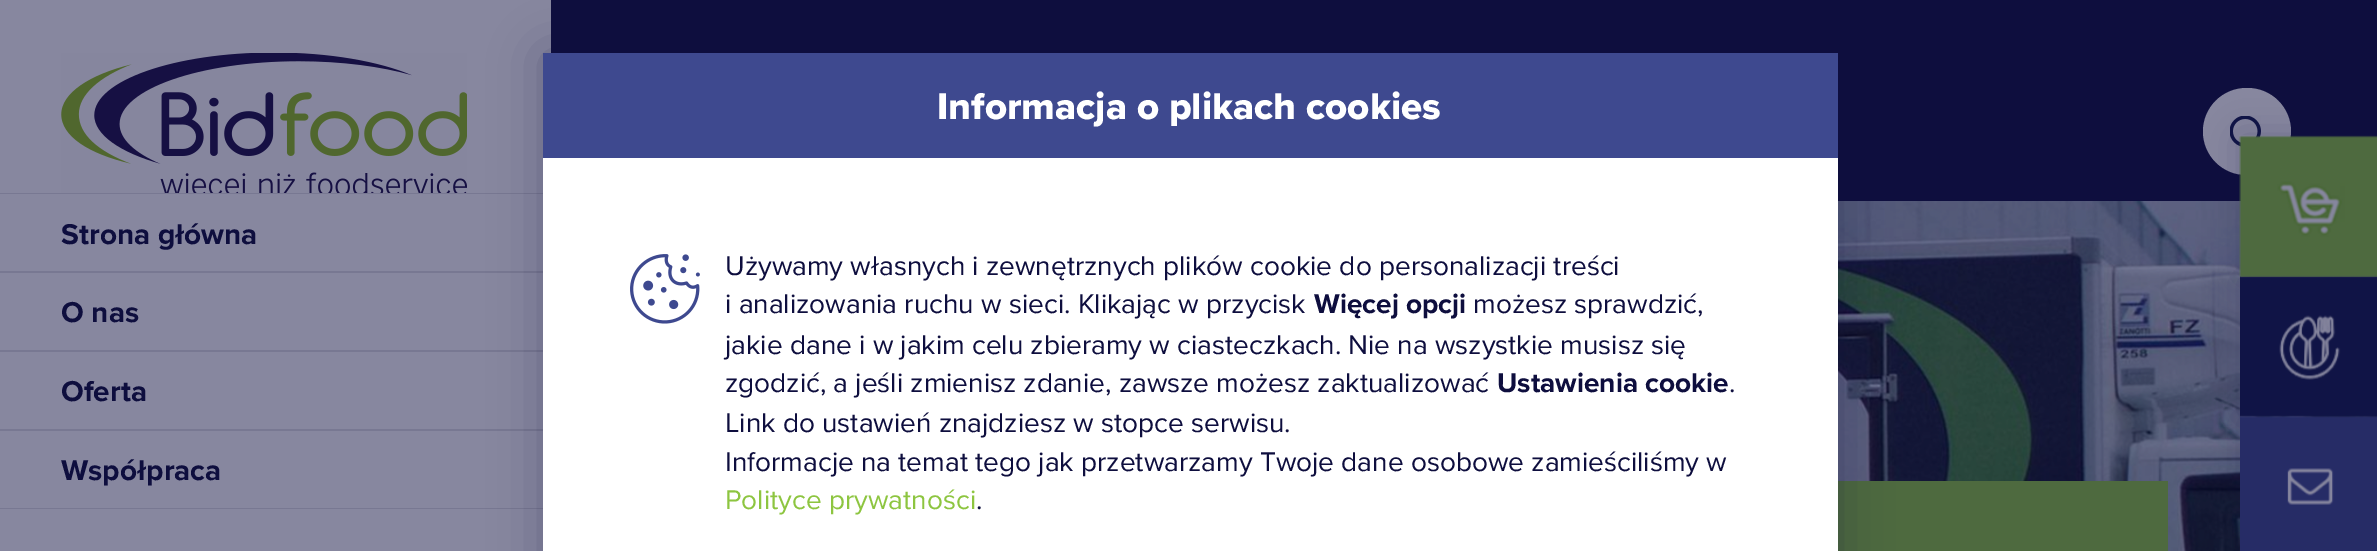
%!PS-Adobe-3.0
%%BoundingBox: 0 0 2377 551
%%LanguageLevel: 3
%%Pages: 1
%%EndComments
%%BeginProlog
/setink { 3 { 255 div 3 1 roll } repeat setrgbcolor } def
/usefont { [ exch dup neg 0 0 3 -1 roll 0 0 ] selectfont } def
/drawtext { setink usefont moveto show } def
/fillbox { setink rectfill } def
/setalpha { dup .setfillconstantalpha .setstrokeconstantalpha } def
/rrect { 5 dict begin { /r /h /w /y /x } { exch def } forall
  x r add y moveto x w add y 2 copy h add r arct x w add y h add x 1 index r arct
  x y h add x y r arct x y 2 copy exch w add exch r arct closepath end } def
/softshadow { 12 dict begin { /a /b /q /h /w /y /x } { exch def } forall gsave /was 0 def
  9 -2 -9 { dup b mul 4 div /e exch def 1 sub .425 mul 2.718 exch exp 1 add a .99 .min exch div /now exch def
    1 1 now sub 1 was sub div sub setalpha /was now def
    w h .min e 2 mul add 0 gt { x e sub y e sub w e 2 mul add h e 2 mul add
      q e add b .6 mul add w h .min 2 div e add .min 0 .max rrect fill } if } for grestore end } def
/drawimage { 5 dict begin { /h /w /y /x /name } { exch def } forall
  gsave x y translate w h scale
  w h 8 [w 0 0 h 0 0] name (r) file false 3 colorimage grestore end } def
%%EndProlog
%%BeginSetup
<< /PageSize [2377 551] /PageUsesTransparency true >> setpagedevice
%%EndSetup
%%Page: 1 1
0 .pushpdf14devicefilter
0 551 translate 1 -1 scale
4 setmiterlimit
0 0 2377 551 14 14 62 fillbox
0 0 551 429 135 135 159 fillbox
(assets/img1.rgb) 61 53 406 140 drawimage
0 193 551 1 120 120 146 fillbox
0 271 551 2 120 120 146 fillbox
(Strona główna) 61 244 /ProximaNova-Bold 29.75 14 14 62 drawtext
0 350 551 2 120 120 146 fillbox
(O nas) 61 322 /ProximaNova-Bold 29.75 14 14 62 drawtext
0 429 551 2 120 120 146 fillbox
(Oferta) 61 401 /ProximaNova-Bold 29.75 14 14 62 drawtext
0 508 551 1 120 120 146 fillbox
0 431 543 77 135 135 159 fillbox
(Współpraca) 61 480 /ProximaNova-Bold 29.75 14 14 62 drawtext
0 509 543 42 135 135 159 fillbox
(assets/img5.rgb) 1838 201 539 350 drawimage
1838 481 330 70 78 106 63 fillbox
14 14 62 setink
543 53 1295 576 0 26 0.3 softshadow
543 158 1295 393 255 255 255 fillbox
543 53 1295 105 62 73 143 fillbox
(Informacja o plikach cookies) 937 119 /ProximaNova-ExtraBold 38.5 255 255 255 drawtext
(assets/img2.rgb) 630 254 70 70 drawimage
(Używamy własnych i zewnętrznych plików cookie do personalizacji treści) 725 275 /ProximaNova-Regular 28 14 14 62 drawtext
(i analizowania ruchu w sieci. Klikając w przycisk) 725 313 /ProximaNova-Regular 28 14 14 62 drawtext
(Więcej opcji) 1314 313 /ProximaNova-Bold 28 14 14 62 drawtext
(możesz sprawdzić,) 1473 313 /ProximaNova-Regular 28 14 14 62 drawtext
(jakie dane i w jakim celu zbieramy w ciasteczkach. Nie na wszystkie musisz się) 725 354 /ProximaNova-Regular 28 14 14 62 drawtext
(zgodzić, a jeśli zmienisz zdanie, zawsze możesz zaktualizować) 725 392 /ProximaNova-Regular 28 14 14 62 drawtext
(Ustawienia cookie) 1497 392 /ProximaNova-Bold 28 14 14 62 drawtext
(.) 1729 392 /ProximaNova-Regular 28 14 14 62 drawtext
(Link do ustawień znajdziesz w stopce serwisu.) 725 432 /ProximaNova-Regular 28 14 14 62 drawtext
(Informacje na temat tego jak przetwarzamy Twoje dane osobowe zamieściliśmy w) 725 471 /ProximaNova-Regular 28 14 14 62 drawtext
(Polityce prywatności) 725 509 /ProximaNova-Regular 28 141 197 64 drawtext
(.) 976 509 /ProximaNova-Regular 28 14 14 62 drawtext
135 135 159 setink
2203 88 88 87 43.5 rrect fill
(assets/img4.rgb) 2230 116 31 31 drawimage
14 14 62 setink
2240 277 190 140 0 17.5 0.2 softshadow
(assets/img6.rgb) 2240 275 137 142 drawimage
2240 137 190 140 0 17.5 0.2 softshadow
(assets/img3.rgb) 2239 135 138 142 drawimage
2240 417 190 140 0 17.5 0.2 softshadow
(assets/img7.rgb) 2240 415 137 136 drawimage
.poppdf14devicefilter showpage
%%EOF
